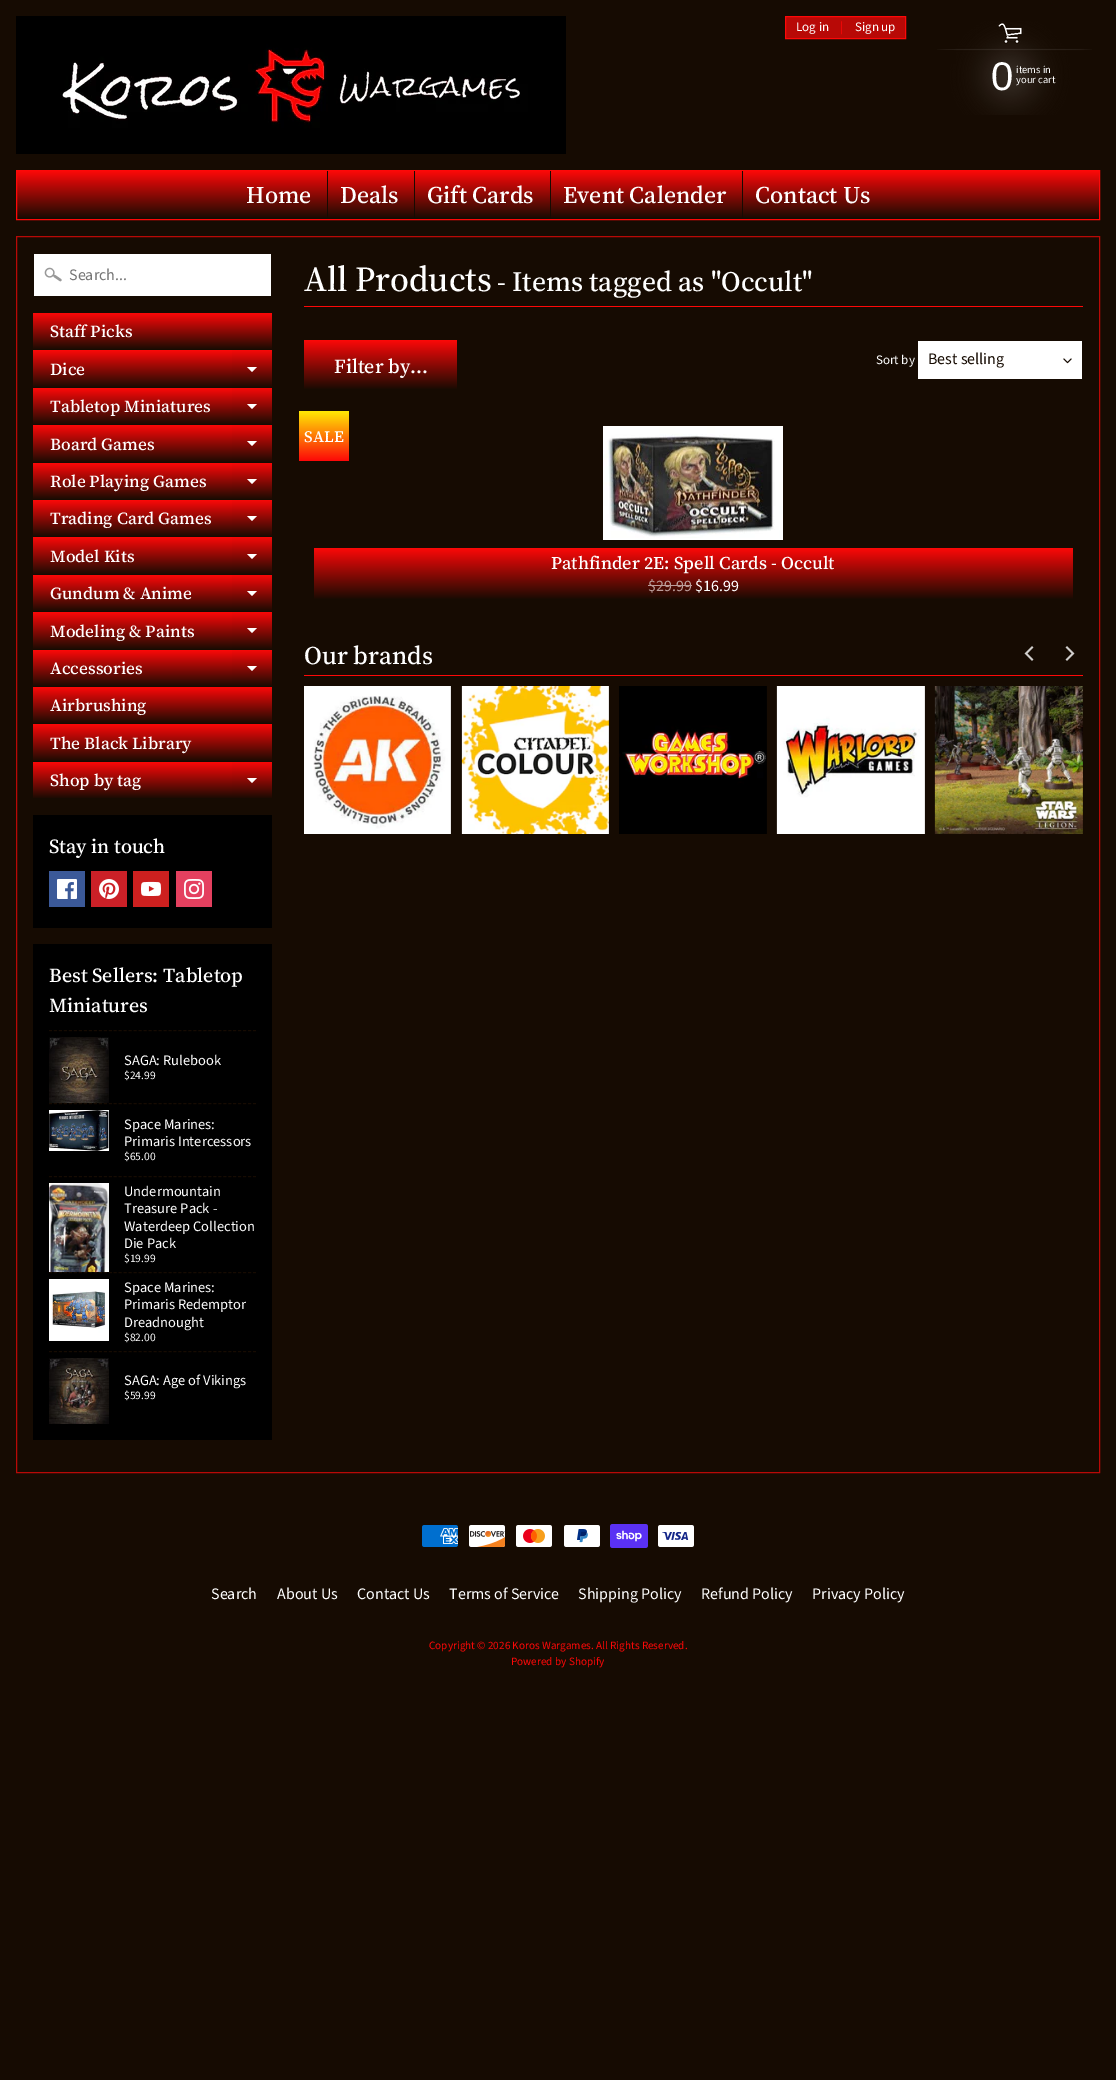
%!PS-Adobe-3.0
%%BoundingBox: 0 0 1116 2080
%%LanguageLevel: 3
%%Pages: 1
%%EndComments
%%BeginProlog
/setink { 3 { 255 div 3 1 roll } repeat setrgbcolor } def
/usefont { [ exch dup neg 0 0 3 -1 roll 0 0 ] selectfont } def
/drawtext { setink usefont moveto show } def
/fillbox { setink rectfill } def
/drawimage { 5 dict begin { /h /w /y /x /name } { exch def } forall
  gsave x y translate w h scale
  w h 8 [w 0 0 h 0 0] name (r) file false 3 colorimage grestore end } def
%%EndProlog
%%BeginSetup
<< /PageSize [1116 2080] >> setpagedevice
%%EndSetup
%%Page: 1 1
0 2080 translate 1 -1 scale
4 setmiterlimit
0 0 1116 2080 22 11 2 fillbox
(assets/img1.rgb) 16 16 550 138 drawimage
184 9 6 setink
785.5 16.5 moveto 905.5 16.5 lineto 905.5 38.5 lineto 785.5 38.5 lineto closepath gsave fill grestore
253 8 8 setink
stroke
(Log in) 796 31 /SourceSansPro-Regular 13 255 255 255 drawtext
(|) 840 31 /SourceSansPro-Regular 13 253 8 8 drawtext
(Sign up) 855 31 /SourceSansPro-Regular 13 255 255 255 drawtext
(assets/img2.rgb) 937 21 155 94 drawimage
(0) 991 90 /LiberationSans-Regular 40 255 255 255 drawtext
(items in) 1016 73 /SourceSansPro-Regular 10.5 255 255 255 drawtext
(your cart) 1016 83 /SourceSansPro-Regular 10.5 255 255 255 drawtext
gsave 17 171 moveto 1099 171 lineto 1099 218 lineto 17 218 lineto closepath clip newpath
<< /ShadingType 2 /ColorSpace /DeviceRGB /Coords [558 171 558 219] /Extend [true true] /Function << /FunctionType 2 /Domain [0 1] /C0 [0.992 0.031 0.031] /C1 [0.086 0.043 0.008] /N 1 >> >> shfill grestore
253 8 8 setink
16.5 170.5 1083 49 rectstroke
(Home) 246 203 /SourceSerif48-Medium 24 255 255 255 drawtext
327 171 1 48 22 11 2 fillbox
(Deals) 340 203 /SourceSerif48-Medium 24 255 255 255 drawtext
414 171 1 48 22 11 2 fillbox
(Gift Cards) 427 203 /SourceSerif48-Medium 24 255 255 255 drawtext
550 171 1 48 22 11 2 fillbox
(Event Calender) 563 203 /SourceSerif48-Medium 24 255 255 255 drawtext
742 171 1 48 22 11 2 fillbox
(Contact Us) 755 203 /SourceSerif48-Medium 24 255 255 255 drawtext
184 9 6 setink
16.5 236.5 1083 1236 rectstroke
34 254 237 42 255 255 255 fillbox
(assets/img3.rgb) 44 267 18 15 drawimage
(Search...) 69 280 /SourceSansPro-Regular 16 117 117 117 drawtext
gsave 33 313 moveto 272 313 lineto 272 350 lineto 33 350 lineto closepath clip newpath
<< /ShadingType 2 /ColorSpace /DeviceRGB /Coords [153 313 153 350] /Extend [true true] /Function << /FunctionType 2 /Domain [0 1] /C0 [0.992 0.031 0.031] /C1 [0.086 0.043 0.008] /N 1 >> >> shfill grestore
(Staff Picks) 50 337 /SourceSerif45-Medium 17 255 255 255 drawtext
gsave 33 350 moveto 232 350 lineto 232 388 lineto 33 388 lineto closepath clip newpath
<< /ShadingType 2 /ColorSpace /DeviceRGB /Coords [153 350 153 388] /Extend [true true] /Function << /FunctionType 2 /Domain [0 1] /C0 [0.992 0.031 0.031] /C1 [0.086 0.043 0.008] /N 1 >> >> shfill grestore
gsave 232 350 moveto 272 350 lineto 272 388 lineto 232 388 lineto closepath clip newpath
<< /ShadingType 2 /ColorSpace /DeviceRGB /Coords [153 350 153 388] /Extend [true true] /Function << /FunctionType 2 /Domain [0 1] /C0 [0.973 0.031 0.031] /C1 [0.086 0.043 0.008] /N 1 >> >> shfill grestore
(Dice) 50 375 /SourceSerif45-Medium 17 255 255 255 drawtext
247 367 moveto 257 367 lineto 252 372 lineto closepath fill
gsave 33 388 moveto 232 388 lineto 232 425 lineto 33 425 lineto closepath clip newpath
<< /ShadingType 2 /ColorSpace /DeviceRGB /Coords [153 388 153 425] /Extend [true true] /Function << /FunctionType 2 /Domain [0 1] /C0 [0.992 0.031 0.031] /C1 [0.086 0.043 0.008] /N 1 >> >> shfill grestore
gsave 232 388 moveto 272 388 lineto 272 425 lineto 232 425 lineto closepath clip newpath
<< /ShadingType 2 /ColorSpace /DeviceRGB /Coords [153 388 153 425] /Extend [true true] /Function << /FunctionType 2 /Domain [0 1] /C0 [0.973 0.031 0.031] /C1 [0.086 0.043 0.008] /N 1 >> >> shfill grestore
(Tabletop Miniatures) 50 412 /SourceSerif45-Medium 17 255 255 255 drawtext
247 404 moveto 257 404 lineto 252 409 lineto closepath fill
gsave 33 425 moveto 232 425 lineto 232 463 lineto 33 463 lineto closepath clip newpath
<< /ShadingType 2 /ColorSpace /DeviceRGB /Coords [153 425 153 463] /Extend [true true] /Function << /FunctionType 2 /Domain [0 1] /C0 [0.992 0.031 0.031] /C1 [0.086 0.043 0.008] /N 1 >> >> shfill grestore
gsave 232 425 moveto 272 425 lineto 272 463 lineto 232 463 lineto closepath clip newpath
<< /ShadingType 2 /ColorSpace /DeviceRGB /Coords [153 425 153 463] /Extend [true true] /Function << /FunctionType 2 /Domain [0 1] /C0 [0.973 0.031 0.031] /C1 [0.086 0.043 0.008] /N 1 >> >> shfill grestore
(Board Games) 50 450 /SourceSerif45-Medium 17 255 255 255 drawtext
247 441 moveto 257 441 lineto 252 446 lineto closepath fill
gsave 33 463 moveto 232 463 lineto 232 500 lineto 33 500 lineto closepath clip newpath
<< /ShadingType 2 /ColorSpace /DeviceRGB /Coords [153 463 153 500] /Extend [true true] /Function << /FunctionType 2 /Domain [0 1] /C0 [0.992 0.031 0.031] /C1 [0.086 0.043 0.008] /N 1 >> >> shfill grestore
gsave 232 463 moveto 272 463 lineto 272 500 lineto 232 500 lineto closepath clip newpath
<< /ShadingType 2 /ColorSpace /DeviceRGB /Coords [153 463 153 500] /Extend [true true] /Function << /FunctionType 2 /Domain [0 1] /C0 [0.973 0.031 0.031] /C1 [0.086 0.043 0.008] /N 1 >> >> shfill grestore
(Role Playing Games) 50 487 /SourceSerif45-Medium 17 255 255 255 drawtext
247 479 moveto 257 479 lineto 252 484 lineto closepath fill
gsave 33 500 moveto 232 500 lineto 232 537 lineto 33 537 lineto closepath clip newpath
<< /ShadingType 2 /ColorSpace /DeviceRGB /Coords [153 500 153 537] /Extend [true true] /Function << /FunctionType 2 /Domain [0 1] /C0 [0.992 0.031 0.031] /C1 [0.086 0.043 0.008] /N 1 >> >> shfill grestore
gsave 232 500 moveto 272 500 lineto 272 537 lineto 232 537 lineto closepath clip newpath
<< /ShadingType 2 /ColorSpace /DeviceRGB /Coords [153 500 153 537] /Extend [true true] /Function << /FunctionType 2 /Domain [0 1] /C0 [0.973 0.031 0.031] /C1 [0.086 0.043 0.008] /N 1 >> >> shfill grestore
(Trading Card Games) 50 524 /SourceSerif45-Medium 17 255 255 255 drawtext
247 516 moveto 257 516 lineto 252 521 lineto closepath fill
gsave 33 537 moveto 232 537 lineto 232 575 lineto 33 575 lineto closepath clip newpath
<< /ShadingType 2 /ColorSpace /DeviceRGB /Coords [153 537 153 575] /Extend [true true] /Function << /FunctionType 2 /Domain [0 1] /C0 [0.992 0.031 0.031] /C1 [0.086 0.043 0.008] /N 1 >> >> shfill grestore
gsave 232 537 moveto 272 537 lineto 272 575 lineto 232 575 lineto closepath clip newpath
<< /ShadingType 2 /ColorSpace /DeviceRGB /Coords [153 537 153 575] /Extend [true true] /Function << /FunctionType 2 /Domain [0 1] /C0 [0.973 0.031 0.031] /C1 [0.086 0.043 0.008] /N 1 >> >> shfill grestore
(Model Kits) 50 562 /SourceSerif45-Medium 17 255 255 255 drawtext
247 554 moveto 257 554 lineto 252 559 lineto closepath fill
gsave 33 575 moveto 232 575 lineto 232 612 lineto 33 612 lineto closepath clip newpath
<< /ShadingType 2 /ColorSpace /DeviceRGB /Coords [153 575 153 612] /Extend [true true] /Function << /FunctionType 2 /Domain [0 1] /C0 [0.992 0.031 0.031] /C1 [0.086 0.043 0.008] /N 1 >> >> shfill grestore
gsave 232 575 moveto 272 575 lineto 272 612 lineto 232 612 lineto closepath clip newpath
<< /ShadingType 2 /ColorSpace /DeviceRGB /Coords [153 575 153 612] /Extend [true true] /Function << /FunctionType 2 /Domain [0 1] /C0 [0.973 0.031 0.031] /C1 [0.086 0.043 0.008] /N 1 >> >> shfill grestore
(Gundum & Anime) 50 599 /SourceSerif45-Medium 17 255 255 255 drawtext
247 591 moveto 257 591 lineto 252 596 lineto closepath fill
gsave 33 612 moveto 232 612 lineto 232 650 lineto 33 650 lineto closepath clip newpath
<< /ShadingType 2 /ColorSpace /DeviceRGB /Coords [153 612 153 650] /Extend [true true] /Function << /FunctionType 2 /Domain [0 1] /C0 [0.992 0.031 0.031] /C1 [0.086 0.043 0.008] /N 1 >> >> shfill grestore
gsave 232 612 moveto 272 612 lineto 272 650 lineto 232 650 lineto closepath clip newpath
<< /ShadingType 2 /ColorSpace /DeviceRGB /Coords [153 612 153 650] /Extend [true true] /Function << /FunctionType 2 /Domain [0 1] /C0 [0.973 0.031 0.031] /C1 [0.086 0.043 0.008] /N 1 >> >> shfill grestore
(Modeling & Paints) 50 637 /SourceSerif45-Medium 17 255 255 255 drawtext
247 628 moveto 257 628 lineto 252 633 lineto closepath fill
gsave 33 650 moveto 232 650 lineto 232 687 lineto 33 687 lineto closepath clip newpath
<< /ShadingType 2 /ColorSpace /DeviceRGB /Coords [153 650 153 687] /Extend [true true] /Function << /FunctionType 2 /Domain [0 1] /C0 [0.992 0.031 0.031] /C1 [0.086 0.043 0.008] /N 1 >> >> shfill grestore
gsave 232 650 moveto 272 650 lineto 272 687 lineto 232 687 lineto closepath clip newpath
<< /ShadingType 2 /ColorSpace /DeviceRGB /Coords [153 650 153 687] /Extend [true true] /Function << /FunctionType 2 /Domain [0 1] /C0 [0.973 0.031 0.031] /C1 [0.086 0.043 0.008] /N 1 >> >> shfill grestore
(Accessories) 50 674 /SourceSerif45-Medium 17 255 255 255 drawtext
247 666 moveto 257 666 lineto 252 671 lineto closepath fill
gsave 33 687 moveto 272 687 lineto 272 724 lineto 33 724 lineto closepath clip newpath
<< /ShadingType 2 /ColorSpace /DeviceRGB /Coords [153 687 153 724] /Extend [true true] /Function << /FunctionType 2 /Domain [0 1] /C0 [0.992 0.031 0.031] /C1 [0.086 0.043 0.008] /N 1 >> >> shfill grestore
(Airbrushing) 50 711 /SourceSerif45-Medium 17 255 255 255 drawtext
gsave 33 724 moveto 272 724 lineto 272 762 lineto 33 762 lineto closepath clip newpath
<< /ShadingType 2 /ColorSpace /DeviceRGB /Coords [153 724 153 762] /Extend [true true] /Function << /FunctionType 2 /Domain [0 1] /C0 [0.992 0.031 0.031] /C1 [0.086 0.043 0.008] /N 1 >> >> shfill grestore
(The Black Library) 50 749 /SourceSerif45-Medium 17 255 255 255 drawtext
gsave 33 762 moveto 232 762 lineto 232 799 lineto 33 799 lineto closepath clip newpath
<< /ShadingType 2 /ColorSpace /DeviceRGB /Coords [153 762 153 799] /Extend [true true] /Function << /FunctionType 2 /Domain [0 1] /C0 [0.992 0.031 0.031] /C1 [0.086 0.043 0.008] /N 1 >> >> shfill grestore
gsave 232 762 moveto 272 762 lineto 272 799 lineto 232 799 lineto closepath clip newpath
<< /ShadingType 2 /ColorSpace /DeviceRGB /Coords [153 762 153 799] /Extend [true true] /Function << /FunctionType 2 /Domain [0 1] /C0 [0.973 0.031 0.031] /C1 [0.086 0.043 0.008] /N 1 >> >> shfill grestore
(Shop by tag) 50 786 /SourceSerif45-Medium 17 255 255 255 drawtext
247 778 moveto 257 778 lineto 252 783 lineto closepath fill
33 815 239 113 0 0 0 fillbox
(Stay in touch) 49 853 /SourceSerif4-Medium 20 255 255 255 drawtext
49 871 36 36 59 89 152 fillbox
(assets/img4.rgb) 57 879 20 20 drawimage
91 871 36 36 203 32 39 fillbox
(assets/img5.rgb) 99 879 20 20 drawimage
133 871 36 36 205 32 31 fillbox
(assets/img6.rgb) 141 881 20 15 drawimage
176 871 36 36 228 64 95 fillbox
(assets/img7.rgb) 184 879 20 20 drawimage
33 944 239 496 0 0 0 fillbox
(Best Sellers: Tabletop) 49 982 /SourceSerif4-Medium 20 255 255 255 drawtext
(Miniatures) 49 1012 /SourceSerif4-Medium 20 255 255 255 drawtext
22 11 2 setink
[3 1.98] 0 setdash
49 1030.5 moveto 256 1030.5 lineto stroke
(assets/img8.rgb) 49 1037 60 66 drawimage
(SAGA: Rulebook) 124 1065 /SourceSansPro-Regular 14.5 255 255 255 drawtext
($24.99) 124 1079 /SourceSansPro-Regular 11.5 255 255 255 drawtext
22 11 2 setink
49 1103.5 moveto 256 1103.5 lineto stroke
(assets/img9.rgb) 49 1110 60 41 drawimage
(Space Marines:) 124 1129 /SourceSansPro-Regular 14.5 255 255 255 drawtext
(Primaris Intercessors) 124 1146 /SourceSansPro-Regular 14.5 255 255 255 drawtext
($65.00) 124 1160 /SourceSansPro-Regular 11.5 255 255 255 drawtext
22 11 2 setink
49 1176.5 moveto 256 1176.5 lineto stroke
(assets/img10.rgb) 49 1183 60 89 drawimage
(Undermountain) 124 1196 /SourceSansPro-Regular 14.5 255 255 255 drawtext
(Treasure Pack -) 124 1213 /SourceSansPro-Regular 14.5 255 255 255 drawtext
(Waterdeep Collection) 124 1231 /SourceSansPro-Regular 14.5 255 255 255 drawtext
(Die Pack) 124 1248 /SourceSansPro-Regular 14.5 255 255 255 drawtext
($19.99) 124 1262 /SourceSansPro-Regular 11.5 255 255 255 drawtext
22 11 2 setink
49 1272.5 moveto 256 1272.5 lineto stroke
(assets/img11.rgb) 49 1279 60 62 drawimage
(Space Marines:) 124 1292 /SourceSansPro-Regular 14.5 255 255 255 drawtext
(Primaris Redemptor) 124 1309 /SourceSansPro-Regular 14.5 255 255 255 drawtext
(Dreadnought) 124 1327 /SourceSansPro-Regular 14.5 255 255 255 drawtext
($82.00) 124 1341 /SourceSansPro-Regular 11.5 255 255 255 drawtext
22 11 2 setink
49 1351.5 moveto 256 1351.5 lineto stroke
(assets/img12.rgb) 49 1358 60 66 drawimage
(SAGA: Age of Vikings) 124 1385 /SourceSansPro-Regular 14.5 255 255 255 drawtext
($59.99) 124 1399 /SourceSansPro-Regular 11.5 255 255 255 drawtext
304 306 779 1 253 8 8 fillbox
(All Products) 304 291 /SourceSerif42-Medium 35.25 255 255 255 drawtext
(- Items tagged as "Occult") 497 291 /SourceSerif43-Medium 28.2 255 255 255 drawtext
gsave 304 340 moveto 457 340 lineto 457 389 lineto 304 389 lineto closepath clip newpath
<< /ShadingType 2 /ColorSpace /DeviceRGB /Coords [381 340 381 390] /Extend [true true] /Function << /FunctionType 2 /Domain [0 1] /C0 [0.992 0.031 0.031] /C1 [0.086 0.043 0.008] /N 1 >> >> shfill grestore
(Filter by...) 334 373 /SourceSerif4-Medium 20 255 255 255 drawtext
(Sort by) 876 364 /SourceSansPro-Regular 13 255 255 255 drawtext
918 341 164 38 255 255 255 fillbox
(assets/img13.rgb) 1063 358 9 6 drawimage
(Best selling) 928 364 /SourceSansPro-Regular 16 22 11 2 drawtext
gsave 299 411 moveto 349 411 lineto 349 461 lineto 299 461 lineto closepath clip newpath
<< /ShadingType 2 /ColorSpace /DeviceRGB /Coords [324 411 324 461] /Extend [true true] /Function << /FunctionType 2 /Domain [0 1] /C0 [1 0.918 0.016] /C1 [0.992 0.031 0.031] /N 1 >> >> shfill grestore
(SALE) 304 442 /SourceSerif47-Medium 16 255 255 255 drawtext
(assets/img14.rgb) 603 426 180 114 drawimage
gsave 314 548 moveto 1073 548 lineto 1073 599 lineto 314 599 lineto closepath clip newpath
<< /ShadingType 2 /ColorSpace /DeviceRGB /Coords [694 548 694 600] /Extend [true true] /Function << /FunctionType 2 /Domain [0 1] /C0 [0.992 0.031 0.031] /C1 [0.086 0.043 0.008] /N 1 >> >> shfill grestore
(Pathfinder 2E: Spell Cards - Occult) 551 569 /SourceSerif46-Medium 18 255 255 255 drawtext
($29.99) 648 591 /SourceSansPro-Regular 16 187 157 154 drawtext
648 585 44 1 187 157 155 fillbox
($16.99) 695 591 /SourceSansPro-Regular 16 255 255 255 drawtext
304 675 779 1 253 8 8 fillbox
(Our brands) 304 664 /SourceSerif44-Medium 25.5 255 255 255 drawtext
(assets/img15.rgb) 1024 646 10 15 drawimage
(assets/img16.rgb) 1065 646 10 15 drawimage
(assets/img17.rgb) 304 686 147 148 drawimage
(assets/img18.rgb) 461 686 148 148 drawimage
(assets/img19.rgb) 619 686 148 148 drawimage
(assets/img20.rgb) 776 686 149 148 drawimage
(assets/img21.rgb) 934 686 149 148 drawimage
(assets/img22.rgb) 422 1525 36 22 drawimage
(assets/img23.rgb) 469 1525 36 22 drawimage
(assets/img24.rgb) 516 1525 36 22 drawimage
(assets/img25.rgb) 564 1525 36 22 drawimage
(assets/img26.rgb) 610 1524 38 24 drawimage
(assets/img27.rgb) 658 1525 36 22 drawimage
(Search) 211 1599 /SourceSansPro-Regular 16 255 255 255 drawtext
(About Us) 277 1599 /SourceSansPro-Regular 16 255 255 255 drawtext
(Contact Us) 357 1599 /SourceSansPro-Regular 16 255 255 255 drawtext
(Terms of Service) 449 1599 /SourceSansPro-Regular 16 255 255 255 drawtext
(Shipping Policy) 578 1599 /SourceSansPro-Regular 16 255 255 255 drawtext
(Refund Policy) 701 1599 /SourceSansPro-Regular 16 255 255 255 drawtext
(Privacy Policy) 812 1599 /SourceSansPro-Regular 16 255 255 255 drawtext
(Copyright © 2026 Koros Wargames. All Rights Reserved.) 429 1649 /SourceSansPro-Regular 11.2 253 8 8 drawtext
(Powered by Shopify) 511 1665 /SourceSansPro-Regular 11.2 253 8 8 drawtext
showpage
%%EOF
